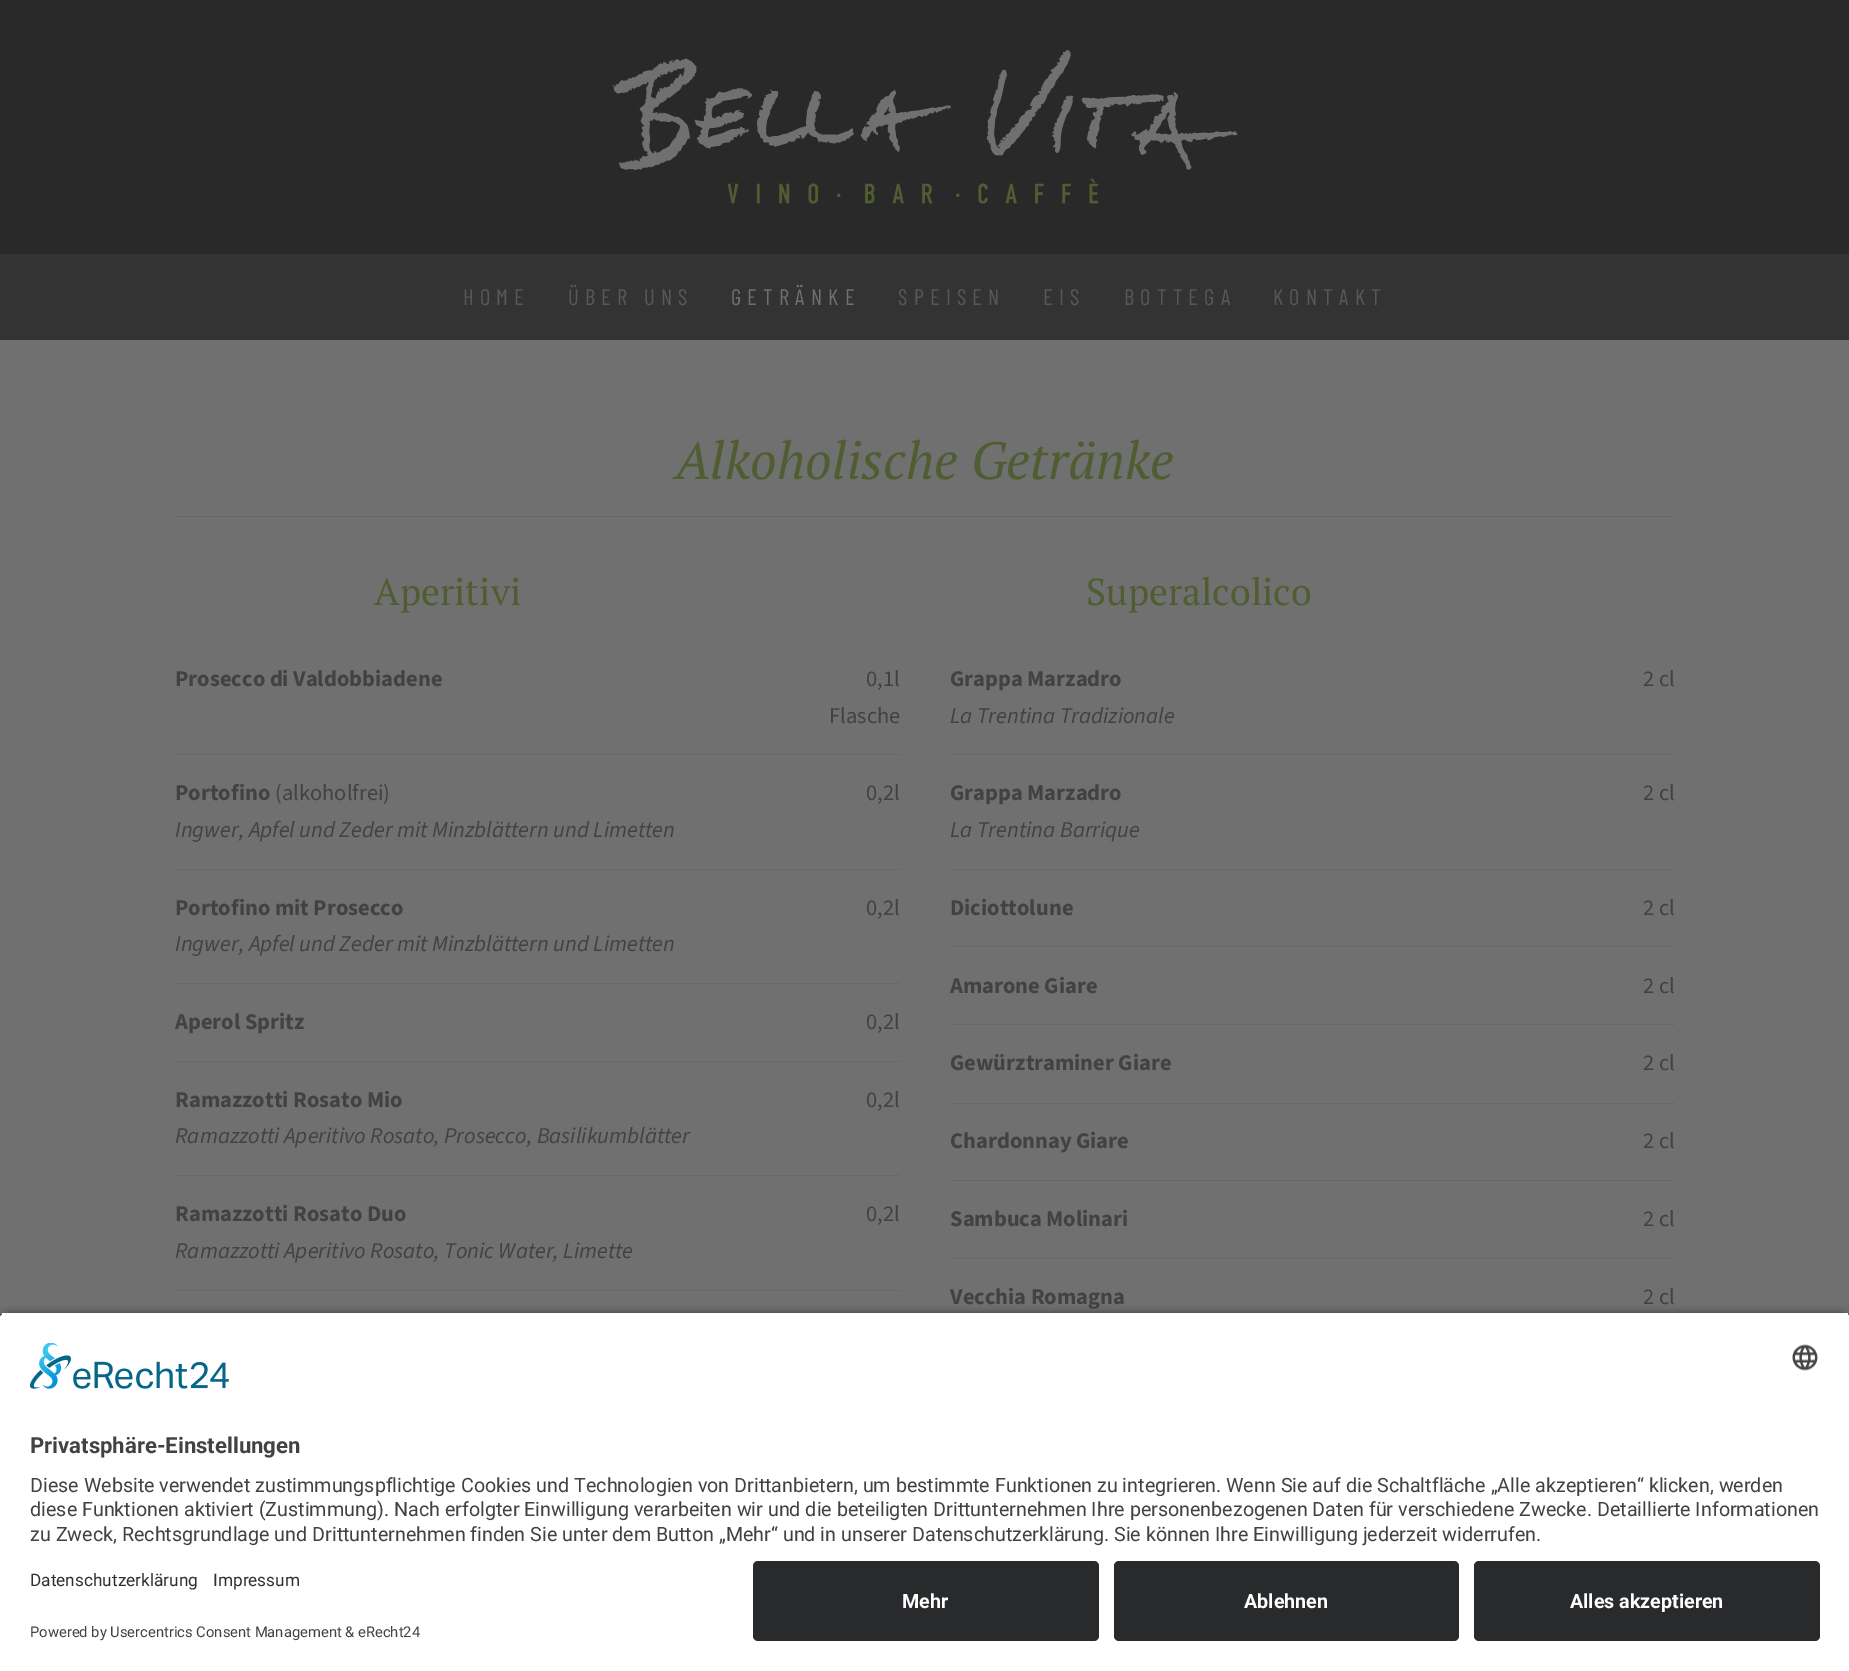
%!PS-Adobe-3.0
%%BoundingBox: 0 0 1849 1671
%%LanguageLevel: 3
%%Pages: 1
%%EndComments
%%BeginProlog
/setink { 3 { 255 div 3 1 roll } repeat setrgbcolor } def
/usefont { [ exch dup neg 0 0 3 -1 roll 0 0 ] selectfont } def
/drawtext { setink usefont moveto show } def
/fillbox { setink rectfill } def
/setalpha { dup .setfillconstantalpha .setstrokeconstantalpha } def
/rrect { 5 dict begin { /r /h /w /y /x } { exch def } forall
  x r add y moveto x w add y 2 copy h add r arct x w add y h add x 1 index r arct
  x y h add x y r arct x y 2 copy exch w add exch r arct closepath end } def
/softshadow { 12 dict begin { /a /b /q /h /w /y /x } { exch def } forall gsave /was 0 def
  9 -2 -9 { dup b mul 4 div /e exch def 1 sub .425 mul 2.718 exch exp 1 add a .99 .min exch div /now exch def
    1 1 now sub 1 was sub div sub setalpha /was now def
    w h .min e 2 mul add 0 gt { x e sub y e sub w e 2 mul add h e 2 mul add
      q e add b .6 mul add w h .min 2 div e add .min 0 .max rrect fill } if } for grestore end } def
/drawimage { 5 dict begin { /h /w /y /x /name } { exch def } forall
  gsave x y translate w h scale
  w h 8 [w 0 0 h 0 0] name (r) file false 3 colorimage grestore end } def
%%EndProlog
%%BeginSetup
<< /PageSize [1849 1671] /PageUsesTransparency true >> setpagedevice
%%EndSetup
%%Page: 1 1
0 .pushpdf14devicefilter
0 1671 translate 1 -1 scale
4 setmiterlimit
0 0 1849 1671 112 112 112 fillbox
0 0 1849 254 41 41 41 fillbox
(assets/img1.rgb) 613 50 625 154 drawimage
0 254 1849 86 51 51 51 fillbox
/BarlowCondensed-Regular 22.5 usefont
88 88 88 setink
463 305 moveto 6.25 0 (HOME) ashow
568 305 moveto 6.25 0 (ÜBER UNS) ashow
112 112 112 setink
731 305 moveto 6.25 0 (GETRÄNKE) ashow
88 88 88 setink
898 305 moveto 6.25 0 (SPEISEN) ashow
1043 305 moveto 6.25 0 (EIS) ashow
1124 305 moveto 6.25 0 (BOTTEGA) ashow
1273 305 moveto 6.25 0 (KONTAKT) ashow
(Alkoholische Getränke) 675 479 /PTSerif-Italic 52.5 80 93 50 drawtext
175 516 1500 1 104 104 105 fillbox
(Aperitivi) 374 605 /PTSerif-Regular 37.5 80 93 50 drawtext
(Prosecco di Valdobbiadene) 175 686 /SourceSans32-ExtraLight 22.5 66 66 66 drawtext
(0,1l) 866 686 /SourceSans3-ExtraLight 22.5 66 66 66 drawtext
(Flasche) 829 723 /SourceSans3-ExtraLight 22.5 66 66 66 drawtext
175 754 725 1 104 104 105 fillbox
(Portofino) 175 800 /SourceSans32-ExtraLight 22.5 66 66 66 drawtext
(\(alkoholfrei\)) 275 800 /SourceSans3-ExtraLight 22.5 66 66 66 drawtext
(Ingwer, Apfel und Zeder mit Minzblättern und Limetten) 175 837 /SourceSans3-ExtraLightItalic 22.5 66 66 66 drawtext
(0,2l) 866 800 /SourceSans3-ExtraLight 22.5 66 66 66 drawtext
175 869 725 1 104 104 105 fillbox
(Portofino mit Prosecco) 175 915 /SourceSans32-ExtraLight 22.5 66 66 66 drawtext
(Ingwer, Apfel und Zeder mit Minzblättern und Limetten) 175 951 /SourceSans3-ExtraLightItalic 22.5 66 66 66 drawtext
(0,2l) 866 915 /SourceSans3-ExtraLight 22.5 66 66 66 drawtext
175 983 725 1 104 104 105 fillbox
(Aperol Spritz) 175 1029 /SourceSans32-ExtraLight 22.5 66 66 66 drawtext
(0,2l) 866 1029 /SourceSans3-ExtraLight 22.5 66 66 66 drawtext
175 1061 725 1 104 104 105 fillbox
(Ramazzotti Rosato Mio) 175 1107 /SourceSans32-ExtraLight 22.5 66 66 66 drawtext
(Ramazzotti Aperitivo Rosato, Prosecco, Basilikumblätter) 175 1143 /SourceSans3-ExtraLightItalic 22.5 66 66 66 drawtext
(0,2l) 866 1107 /SourceSans3-ExtraLight 22.5 66 66 66 drawtext
175 1175 725 1 104 104 105 fillbox
(Ramazzotti Rosato Duo) 175 1221 /SourceSans32-ExtraLight 22.5 66 66 66 drawtext
(Ramazzotti Aperitivo Rosato, Tonic Water, Limette) 175 1258 /SourceSans3-ExtraLightItalic 22.5 66 66 66 drawtext
(0,2l) 866 1221 /SourceSans3-ExtraLight 22.5 66 66 66 drawtext
175 1290 725 1 104 104 105 fillbox
(Superalcolico) 1086 605 /PTSerif-Regular 37.5 80 93 50 drawtext
(Grappa Marzadro) 950 686 /SourceSans32-ExtraLight 22.5 66 66 66 drawtext
(La Trentina Tradizionale) 950 723 /SourceSans3-ExtraLightItalic 22.5 66 66 66 drawtext
(2 cl) 1643 686 /SourceSans3-ExtraLight 22.5 66 66 66 drawtext
950 754 725 1 104 104 105 fillbox
(Grappa Marzadro) 950 800 /SourceSans32-ExtraLight 22.5 66 66 66 drawtext
(La Trentina Barrique) 950 837 /SourceSans3-ExtraLightItalic 22.5 66 66 66 drawtext
(2 cl) 1643 800 /SourceSans3-ExtraLight 22.5 66 66 66 drawtext
950 869 725 1 104 104 105 fillbox
(Diciottolune) 950 915 /SourceSans32-ExtraLight 22.5 66 66 66 drawtext
(2 cl) 1643 915 /SourceSans3-ExtraLight 22.5 66 66 66 drawtext
950 946 725 1 104 104 105 fillbox
(Amarone Giare) 950 993 /SourceSans32-ExtraLight 22.5 66 66 66 drawtext
(2 cl) 1643 993 /SourceSans3-ExtraLight 22.5 66 66 66 drawtext
950 1024 725 1 104 104 105 fillbox
(Gewürztraminer Giare) 950 1070 /SourceSans32-ExtraLight 22.5 66 66 66 drawtext
(2 cl) 1643 1070 /SourceSans3-ExtraLight 22.5 66 66 66 drawtext
950 1103 725 1 104 104 105 fillbox
(Chardonnay Giare) 950 1148 /SourceSans32-ExtraLight 22.5 66 66 66 drawtext
(2 cl) 1643 1148 /SourceSans3-ExtraLight 22.5 66 66 66 drawtext
950 1180 725 1 104 104 105 fillbox
(Sambuca Molinari) 950 1226 /SourceSans32-ExtraLight 22.5 66 66 66 drawtext
(2 cl) 1643 1226 /SourceSans3-ExtraLight 22.5 66 66 66 drawtext
950 1258 725 1 104 104 105 fillbox
(Vecchia Romagna) 950 1304 /SourceSans32-ExtraLight 22.5 66 66 66 drawtext
(2 cl) 1643 1304 /SourceSans3-ExtraLight 22.5 66 66 66 drawtext
0 0 0 setink
0 1315 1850 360 10 4.5 0.8 softshadow
gsave
10 1311 moveto 1840 1311 lineto 1845.5 1311 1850 1315.5 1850 1321 curveto 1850 1551 lineto 0 1551 lineto 0 1321 lineto 0 1315.5 4.5 1311 10 1311 curveto closepath clip newpath
0 1313 1849 238 255 255 255 fillbox
grestore
(assets/img2.rgb) 30 1343 199 46 drawimage
(assets/img3.rgb) 1792 1344 26 27 drawimage
(Privatsphäre-Einstellungen) 30 1453 /Roboto-Bold 22.1 66 66 66 drawtext
(Diese Website verwendet zustimmungspflichtige Cookies und Technologien von Drittanbietern, um bestimmte Funktionen zu integrieren. Wenn Sie auf die Schaltfläche „Alle akzeptieren“ klicken, werden) 30 1492 /Roboto-Regular 19.7 66 66 66 drawtext
(diese Funktionen aktiviert \(Zustimmung\). Nach erfolgter Einwilligung verarbeiten wir und die beteiligten Drittunternehmen Ihre personenbezogenen Daten für verschiedene Zwecke. Detaillierte Informationen) 30 1516 /Roboto-Regular 19.7 66 66 66 drawtext
(zu Zweck, Rechtsgrundlage und Drittunternehmen finden Sie unter dem Button „Mehr“ und in unserer Datenschutzerklärung. Sie können Ihre Einwilligung jederzeit widerrufen.) 30 1541 /Roboto-Regular 19.7 66 66 66 drawtext
0 1551 1849 120 255 255 255 fillbox
(Datenschutzerklärung) 30 1586 /Roboto-Regular 17.25 48 48 48 drawtext
(Impressum) 213 1586 /Roboto-Regular 17.25 48 48 48 drawtext
(Powered by Usercentrics Consent Management & eRecht24) 30 1637 /Roboto-Regular 14.75 66 66 66 drawtext
41 42 43 setink
753 1561 346 80 5 rrect fill
(Mehr) 902 1608 /Roboto-Bold 19.7 255 255 255 drawtext
41 42 43 setink
1114 1561 345 80 5 rrect fill
(Ablehnen) 1244 1608 /Roboto-Bold 19.7 255 255 255 drawtext
41 42 43 setink
1474 1561 346 80 5 rrect fill
(Alles akzeptieren) 1570 1608 /Roboto-Bold 19.7 255 255 255 drawtext
.poppdf14devicefilter showpage
%%EOF
